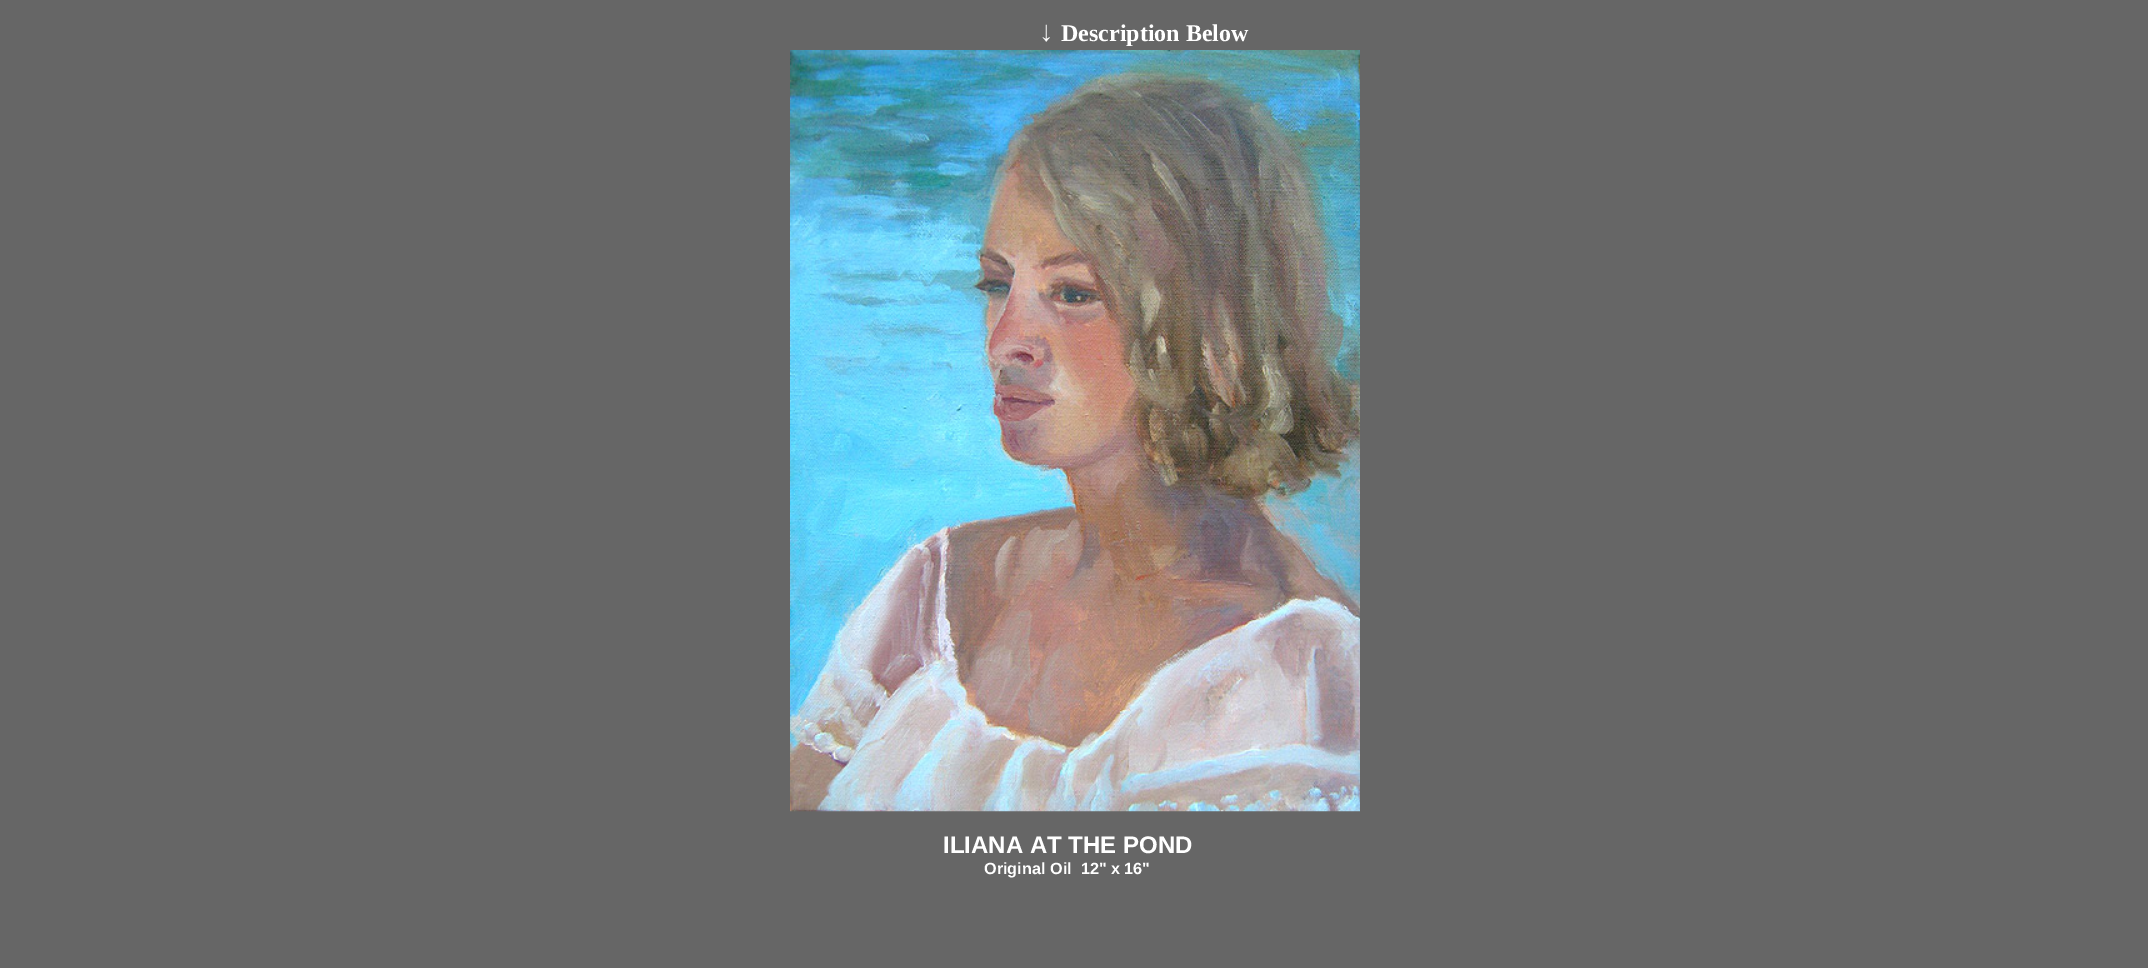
%!PS-Adobe-3.0
%%BoundingBox: 0 0 2148 968
%%LanguageLevel: 3
%%Pages: 1
%%EndComments
%%BeginProlog
/setink { 3 { 255 div 3 1 roll } repeat setrgbcolor } def
/usefont { [ exch dup neg 0 0 3 -1 roll 0 0 ] selectfont } def
/drawtext { setink usefont moveto show } def
/fillbox { setink rectfill } def
/drawimage { 5 dict begin { /h /w /y /x /name } { exch def } forall
  gsave x y translate w h scale
  w h 8 [w 0 0 h 0 0] name (r) file false 3 colorimage grestore end } def
%%EndProlog
%%BeginSetup
<< /PageSize [2148 968] >> setpagedevice
%%EndSetup
%%Page: 1 1
0 968 translate 1 -1 scale
4 setmiterlimit
0 0 2148 968 102 102 102 fillbox
(↓) 1039 41 /LiberationSerif-Bold 29 255 255 255 drawtext
(Description Below) 1061 41 /LiberationSerif-Bold 24 255 255 255 drawtext
(assets/img1.rgb) 790 50 570 762 drawimage
(ILIANA AT THE POND) 943 853 /LiberationSans-Bold 24 255 255 255 drawtext
(Original Oil  12" x 16") 984 874 /LiberationSans-Bold 16.25 255 255 255 drawtext
showpage
%%EOF
